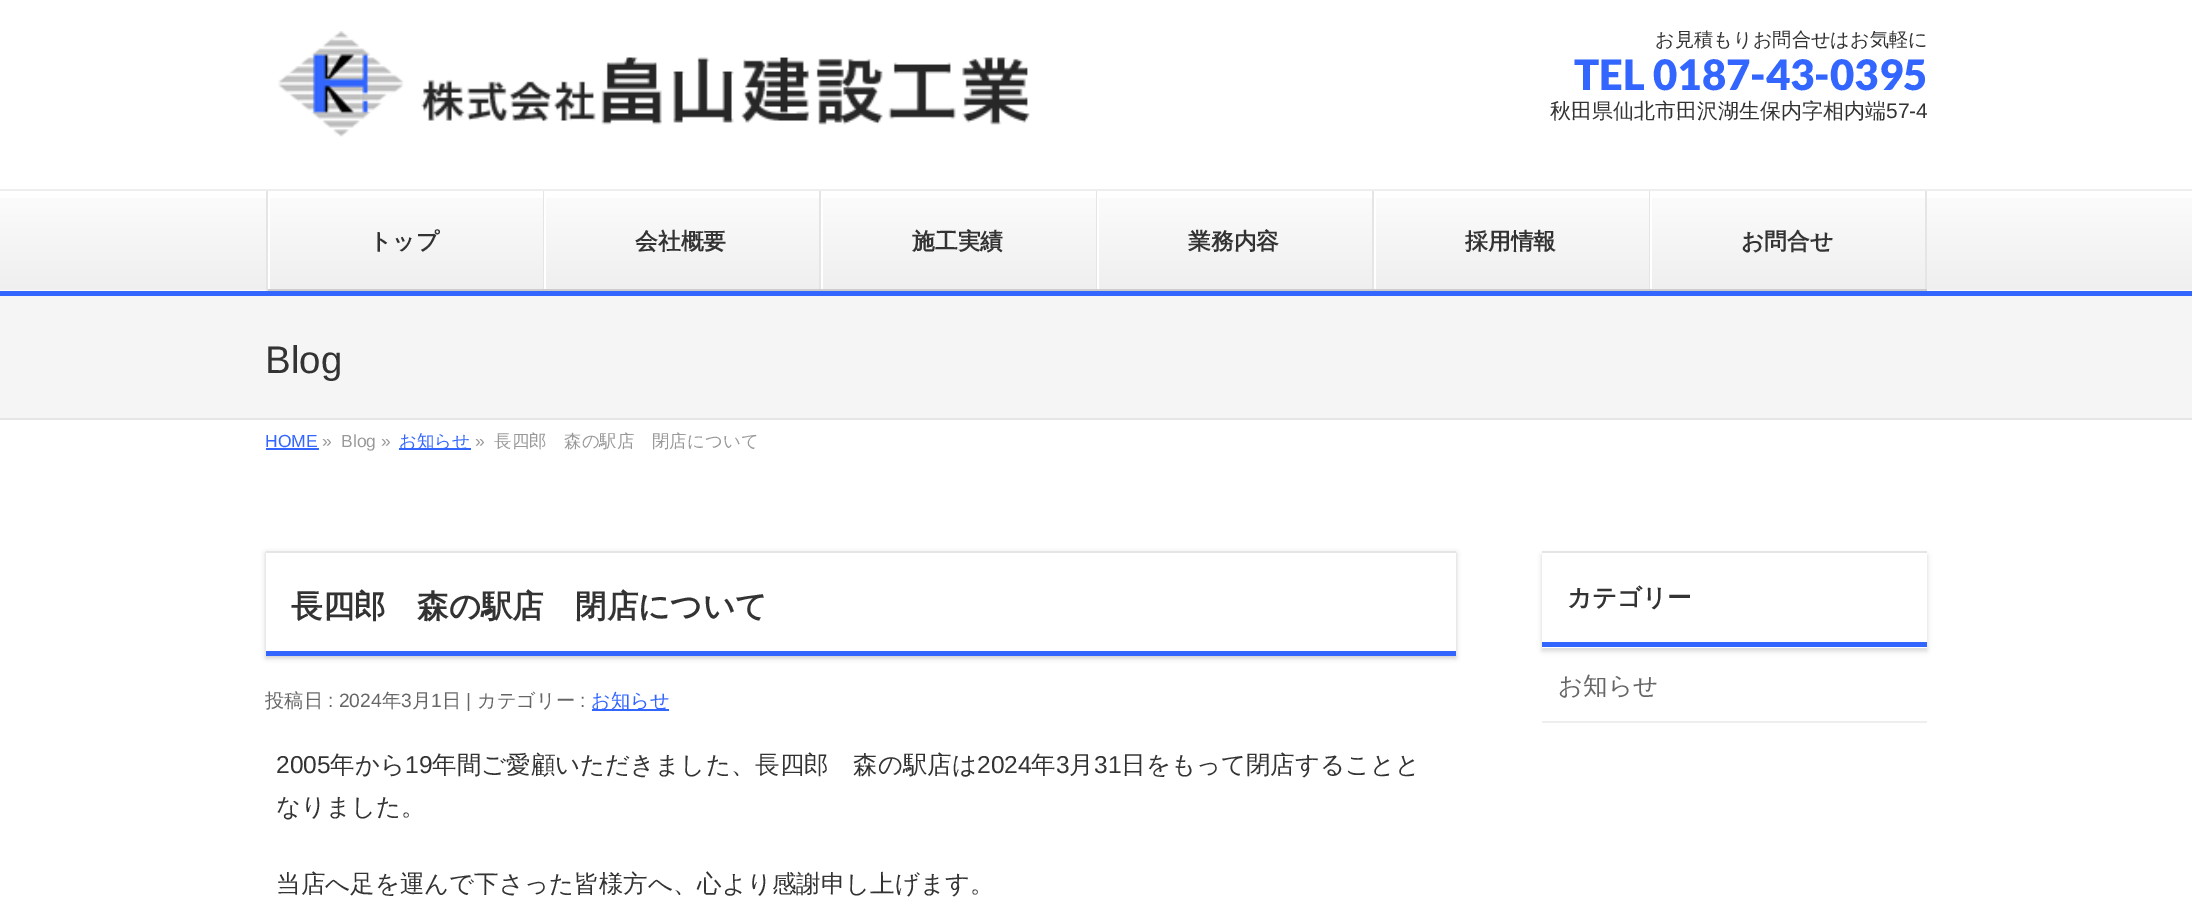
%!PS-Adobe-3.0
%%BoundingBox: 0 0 2192 909
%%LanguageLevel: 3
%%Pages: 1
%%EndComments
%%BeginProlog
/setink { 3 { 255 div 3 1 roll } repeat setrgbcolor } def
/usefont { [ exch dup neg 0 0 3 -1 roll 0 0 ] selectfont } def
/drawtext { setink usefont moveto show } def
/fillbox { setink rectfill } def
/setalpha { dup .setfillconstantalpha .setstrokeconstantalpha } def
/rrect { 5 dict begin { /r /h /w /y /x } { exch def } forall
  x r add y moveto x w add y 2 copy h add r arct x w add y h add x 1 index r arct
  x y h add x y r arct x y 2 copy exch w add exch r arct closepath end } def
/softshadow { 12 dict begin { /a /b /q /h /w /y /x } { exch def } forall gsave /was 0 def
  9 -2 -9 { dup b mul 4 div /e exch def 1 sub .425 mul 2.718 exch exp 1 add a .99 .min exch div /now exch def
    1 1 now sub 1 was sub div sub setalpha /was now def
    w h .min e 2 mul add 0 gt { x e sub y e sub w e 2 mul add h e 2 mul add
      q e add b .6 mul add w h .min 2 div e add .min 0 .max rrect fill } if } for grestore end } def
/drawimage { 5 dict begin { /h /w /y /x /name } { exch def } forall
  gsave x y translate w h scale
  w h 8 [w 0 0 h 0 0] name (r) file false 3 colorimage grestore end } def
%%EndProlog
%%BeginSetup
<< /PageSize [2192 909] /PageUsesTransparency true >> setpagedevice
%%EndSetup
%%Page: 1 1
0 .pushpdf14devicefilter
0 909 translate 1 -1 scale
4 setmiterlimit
0 0 2192 909 255 255 255 fillbox
(assets/img1.rgb) 278 31 752 106 drawimage
(お見積もりお問合せはお気軽に) 1655 46 /WenQuanYiZenHei-Medium 19.25 51 51 51 drawtext
(TEL 0187-43-0395) 1574 90 /Lato-Black 42 51 102 255 drawtext
(秋田県仙北市田沢湖生保内字相内端) 1550 118 /WenQuanYiZenHei-Medium 21 51 51 51 drawtext
(57-4) 1886 118 /LiberationSans-Regular 21 51 51 51 drawtext
(assets/img2.rgb) 0 198 2192 93 drawimage
0 189 2192 2 238 238 238 fillbox
0 291 2192 5 51 102 255 fillbox
266 191 2 100 229 229 229 fillbox
268 191 2 100 255 255 255 fillbox
543 191 1 100 229 229 229 fillbox
268 289 276 2 204 204 204 fillbox
(トップ) 369 249 /WenQuanYiZenHei-Bold 22.75 51 51 51 drawtext
544 191 2 100 255 255 255 fillbox
819 191 2 100 229 229 229 fillbox
544 289 277 2 204 204 204 fillbox
(会社概要) 635 249 /WenQuanYiZenHei-Bold 22.75 51 51 51 drawtext
821 191 2 100 255 255 255 fillbox
1096 191 1 100 229 229 229 fillbox
821 289 276 2 204 204 204 fillbox
(施工実績) 912 249 /WenQuanYiZenHei-Bold 22.75 51 51 51 drawtext
1097 191 2 100 255 255 255 fillbox
1372 191 2 100 229 229 229 fillbox
1097 289 277 2 204 204 204 fillbox
(業務内容) 1188 249 /WenQuanYiZenHei-Bold 22.75 51 51 51 drawtext
1374 191 2 100 255 255 255 fillbox
1649 191 1 100 229 229 229 fillbox
1374 289 276 2 204 204 204 fillbox
(採用情報) 1465 249 /WenQuanYiZenHei-Bold 22.75 51 51 51 drawtext
1650 191 2 100 255 255 255 fillbox
1925 191 2 100 229 229 229 fillbox
1650 289 277 2 204 204 204 fillbox
(お問合せ) 1741 249 /WenQuanYiZenHei-Bold 22.75 51 51 51 drawtext
0 296 2192 122 245 245 245 fillbox
0 418 2192 2 229 229 229 fillbox
(Blog) 265 373 /LiberationSans-Regular 38.5 51 51 51 drawtext
(HOME) 265 447 /LiberationSans-Regular 17.5 51 102 255 drawtext
266 448 53 2 51 102 255 fillbox
(») 322 447 /LiberationSans-Regular 17.5 153 153 153 drawtext
(Blog ») 341 447 /LiberationSans-Regular 17.5 153 153 153 drawtext
399 448 72 2 51 102 255 fillbox
(お知らせ) 399 447 /WenQuanYiZenHei-Medium 17.5 51 102 255 drawtext
(») 475 447 /LiberationSans-Regular 17.5 153 153 153 drawtext
(長四郎　森の駅店　閉店について) 494 447 /WenQuanYiZenHei-Medium 17.5 153 153 153 drawtext
gsave
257 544 moveto 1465 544 lineto 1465 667 lineto 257 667 lineto closepath 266 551 moveto 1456 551 lineto 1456 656 lineto 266 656 lineto closepath eoclip newpath
0 0 0 setink
266 553 1190 105 0 2.5 0.2 softshadow
grestore
266 551 1190 2 229 229 229 fillbox
266 651 1190 5 51 102 255 fillbox
(長四郎　森の駅店　閉店について) 291 617 /WenQuanYiZenHei-Bold 31.5 51 51 51 drawtext
(投稿日) 265 707 /WenQuanYiZenHei-Medium 19.25 102 102 102 drawtext
(: 2024) 328 707 /LiberationSans-Regular 19.25 102 102 102 drawtext
(年) 382 707 /WenQuanYiZenHei-Medium 19.25 102 102 102 drawtext
(3) 401 707 /LiberationSans-Regular 19.25 102 102 102 drawtext
(月) 412 707 /WenQuanYiZenHei-Medium 19.25 102 102 102 drawtext
(1) 431 707 /LiberationSans-Regular 19.25 102 102 102 drawtext
(日) 442 707 /WenQuanYiZenHei-Medium 19.25 102 102 102 drawtext
(|) 466 707 /LiberationSans-Regular 19.25 102 102 102 drawtext
(カテゴリー) 477 707 /WenQuanYiZenHei-Medium 19.25 102 102 102 drawtext
(:) 580 707 /LiberationSans-Regular 19.25 102 102 102 drawtext
592 709 77 2 51 102 255 fillbox
(お知らせ) 591 707 /WenQuanYiZenHei-Medium 19.25 51 102 255 drawtext
(2005) 276 773 /LiberationSans-Regular 24.5 51 51 51 drawtext
(年から) 330 773 /WenQuanYiZenHei-Medium 24.5 51 51 51 drawtext
(19) 405 773 /LiberationSans-Regular 24.5 51 51 51 drawtext
(年間ご愛顧いただきました、長四郎　森の駅店は) 432 773 /WenQuanYiZenHei-Medium 24.5 51 51 51 drawtext
(2024) 977 773 /LiberationSans-Regular 24.5 51 51 51 drawtext
(年) 1031 773 /WenQuanYiZenHei-Medium 24.5 51 51 51 drawtext
(3) 1056 773 /LiberationSans-Regular 24.5 51 51 51 drawtext
(月) 1069 773 /WenQuanYiZenHei-Medium 24.5 51 51 51 drawtext
(31) 1094 773 /LiberationSans-Regular 24.5 51 51 51 drawtext
(日をもって閉店することと) 1121 773 /WenQuanYiZenHei-Medium 24.5 51 51 51 drawtext
(なりました。) 276 815 /WenQuanYiZenHei-Medium 24.5 51 51 51 drawtext
(当店へ足を運んで下さった皆様方へ、心より感謝申し上げます。) 276 892 /WenQuanYiZenHei-Medium 24.5 51 51 51 drawtext
gsave
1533 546 moveto 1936 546 lineto 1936 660 lineto 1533 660 lineto closepath 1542 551 moveto 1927 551 lineto 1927 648 lineto 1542 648 lineto closepath eoclip newpath
0 0 0 setink
1542 555 385 96 0 2.5 0.15 softshadow
grestore
1542 551 385 2 229 229 229 fillbox
1542 642 385 5 51 102 255 fillbox
(カテゴリー) 1567 606 /WenQuanYiZenHei-Bold 24.5 51 51 51 drawtext
1542 721 385 2 238 238 238 fillbox
(お知らせ) 1558 694 /WenQuanYiZenHei-Medium 24.5 102 102 102 drawtext
.poppdf14devicefilter showpage
%%EOF
